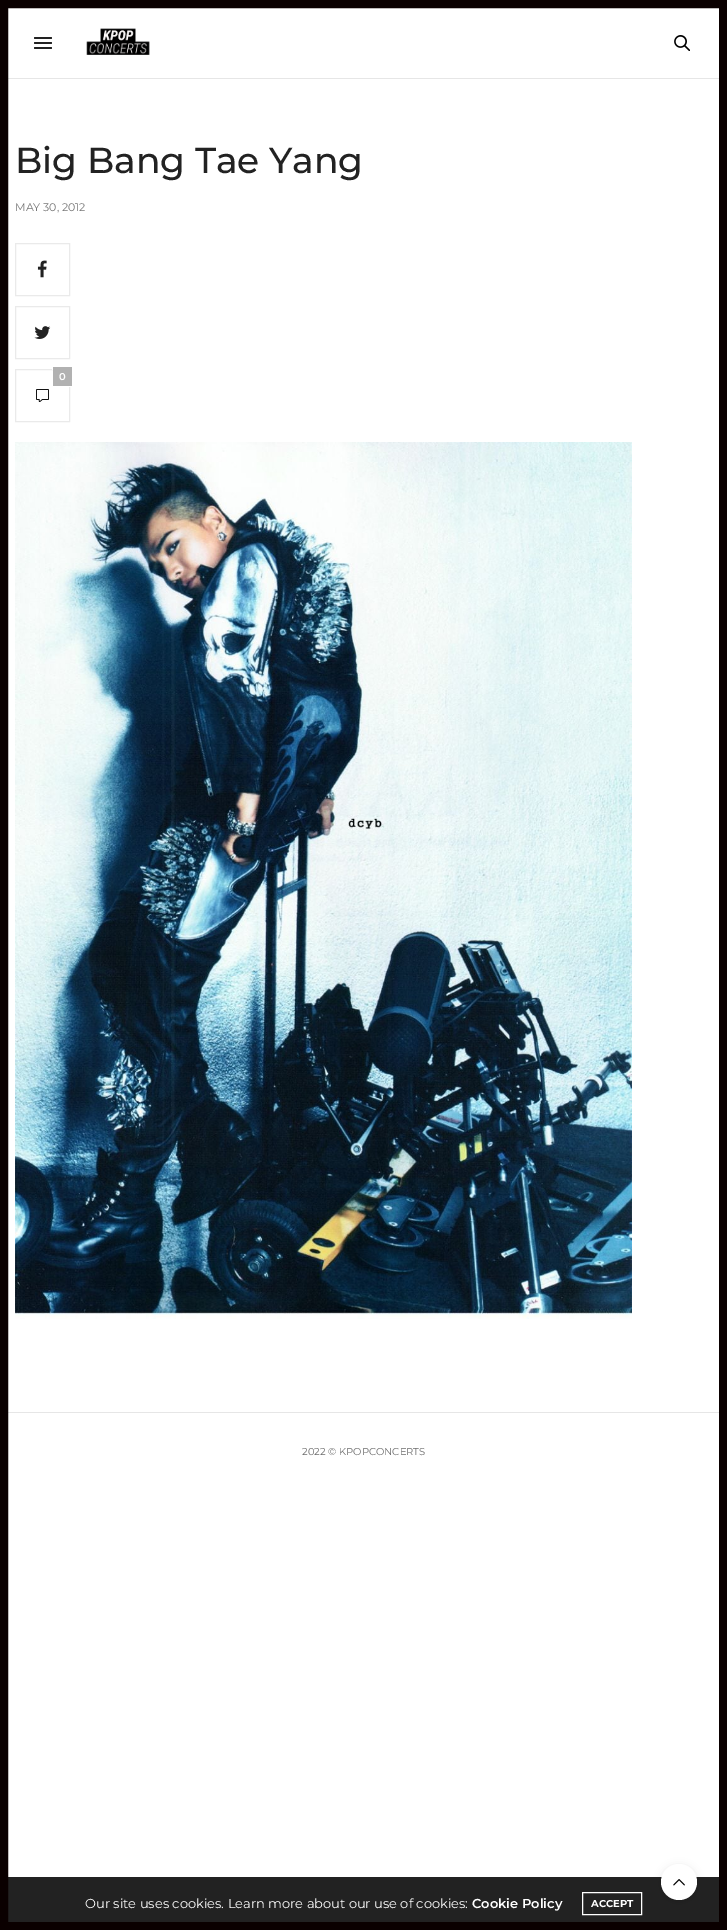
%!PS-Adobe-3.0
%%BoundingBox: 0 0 727 1930
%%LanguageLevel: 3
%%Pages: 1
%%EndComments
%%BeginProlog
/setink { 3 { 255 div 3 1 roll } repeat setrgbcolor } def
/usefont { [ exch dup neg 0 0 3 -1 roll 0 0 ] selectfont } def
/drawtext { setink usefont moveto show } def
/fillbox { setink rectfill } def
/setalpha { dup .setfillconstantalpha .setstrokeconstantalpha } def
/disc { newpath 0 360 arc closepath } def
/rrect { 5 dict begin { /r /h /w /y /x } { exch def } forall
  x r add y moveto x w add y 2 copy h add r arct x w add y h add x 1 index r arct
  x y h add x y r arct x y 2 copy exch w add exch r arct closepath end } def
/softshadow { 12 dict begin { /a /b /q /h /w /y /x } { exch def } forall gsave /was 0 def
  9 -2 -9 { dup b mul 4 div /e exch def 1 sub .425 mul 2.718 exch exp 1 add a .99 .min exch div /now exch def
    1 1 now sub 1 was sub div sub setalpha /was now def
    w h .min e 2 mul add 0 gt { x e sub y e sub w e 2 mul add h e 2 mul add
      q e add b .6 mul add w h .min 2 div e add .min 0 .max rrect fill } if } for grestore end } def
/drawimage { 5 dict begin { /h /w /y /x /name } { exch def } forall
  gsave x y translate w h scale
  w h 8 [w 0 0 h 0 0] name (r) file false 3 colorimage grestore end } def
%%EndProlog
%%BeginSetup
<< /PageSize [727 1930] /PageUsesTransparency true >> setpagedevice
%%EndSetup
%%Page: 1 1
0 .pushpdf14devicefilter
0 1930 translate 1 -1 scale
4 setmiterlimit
0 0 727 1930 255 255 255 fillbox
0 78 727 1 230 230 230 fillbox
34 34 34 setink
34 37 18 2 1 rrect fill
34 42 18 2 1 rrect fill
34 47 18 2 1 rrect fill
(assets/img1.rgb) 86 28 64 27 drawimage
(assets/img2.rgb) 674 35 16 16 drawimage
234 234 234 setink
15.5 243.5 54 52 rectstroke
(assets/img3.rgb) 37 260 10 18 drawimage
15.5 306.5 54 52 rectstroke
(assets/img4.rgb) 34 326 17 13 drawimage
15.5 369.5 54 52 rectstroke
53 367 19 19 177 177 177 fillbox
69 386 3 1 255 255 255 fillbox
52 367 1 3 255 255 255 fillbox
(assets/img5.rgb) 36 389 13 13 drawimage
(assets/img6.rgb) 15 442 617 877 drawimage
0 1412 727 1 230 230 230 fillbox
8 1877 711 45 34 34 34 fillbox
255 255 255 setink
582.5 1892.5 59 22 rectstroke
0 0 0 setink
661 1866 36 36 18 4 0.1 softshadow
255 255 255 setink
679 1882 18 disc fill
(assets/img7.rgb) 673 1879 12 7 drawimage
10 0 0 setink
8 setlinewidth
4 4 719 1922 rectstroke
(Big Bang Tae Yang) 15 173 /Montserrat-Medium 36 34 34 34 drawtext
(MAY 30, 2012) 15 211 /Montserrat-Regular 11 118 118 118 drawtext
(0) 59 380 /Montserrat-SemiBold 10 255 255 255 drawtext
(2022 © KPOPCONCERTS) 302 1455 /Montserrat-Regular 10 106 106 106 drawtext
(Our site uses cookies. Learn more about our use of cookies:) 85 1908 /Montserrat-Regular 13 255 255 255 drawtext
(Cookie Policy) 472 1908 /Montserrat-SemiBold 13 255 255 255 drawtext
(ACCEPT) 591 1907 /Montserrat-Bold 10 255 255 255 drawtext
.poppdf14devicefilter showpage
%%EOF
